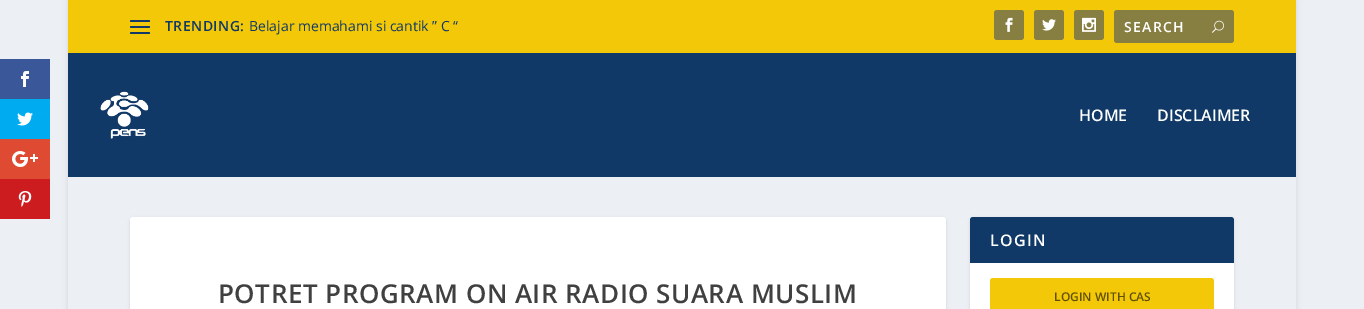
%!PS-Adobe-3.0
%%BoundingBox: 0 0 1364 309
%%LanguageLevel: 3
%%Pages: 1
%%EndComments
%%BeginProlog
/setink { 3 { 255 div 3 1 roll } repeat setrgbcolor } def
/usefont { [ exch dup neg 0 0 3 -1 roll 0 0 ] selectfont } def
/drawtext { setink usefont moveto show } def
/fillbox { setink rectfill } def
/setalpha { dup .setfillconstantalpha .setstrokeconstantalpha } def
/rrect { 5 dict begin { /r /h /w /y /x } { exch def } forall
  x r add y moveto x w add y 2 copy h add r arct x w add y h add x 1 index r arct
  x y h add x y r arct x y 2 copy exch w add exch r arct closepath end } def
/softshadow { 12 dict begin { /a /b /q /h /w /y /x } { exch def } forall gsave /was 0 def
  9 -2 -9 { dup b mul 4 div /e exch def 1 sub .425 mul 2.718 exch exp 1 add a .99 .min exch div /now exch def
    1 1 now sub 1 was sub div sub setalpha /was now def
    w h .min e 2 mul add 0 gt { x e sub y e sub w e 2 mul add h e 2 mul add
      q e add b .6 mul add w h .min 2 div e add .min 0 .max rrect fill } if } for grestore end } def
/drawimage { 5 dict begin { /h /w /y /x /name } { exch def } forall
  gsave x y translate w h scale
  w h 8 [w 0 0 h 0 0] name (r) file false 3 colorimage grestore end } def
%%EndProlog
%%BeginSetup
<< /PageSize [1364 309] /PageUsesTransparency true >> setpagedevice
%%EndSetup
%%Page: 1 1
0 .pushpdf14devicefilter
0 309 translate 1 -1 scale
4 setmiterlimit
0 0 1364 309 236 240 245 fillbox
gsave
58 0 moveto 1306 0 lineto 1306 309 lineto 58 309 lineto closepath 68 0 moveto 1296 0 lineto 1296 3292 lineto 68 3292 lineto closepath eoclip newpath
0 0 0 setink
68 1 1228 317 0 3 0.1 softshadow
grestore
0 59 50 40 58 87 154 fillbox
(assets/img1.rgb) 21 71 8 16 drawimage
0 99 50 40 0 171 240 fillbox
(assets/img2.rgb) 17 112 16 14 drawimage
0 139 50 40 223 74 50 fillbox
(assets/img3.rgb) 12 151 26 16 drawimage
0 179 50 40 205 28 31 fillbox
(assets/img4.rgb) 18 191 14 16 drawimage
68 0 1228 53 242 200 8 fillbox
16 57 103 setink
130 20 20 2 1 rrect fill
130 26 20 2 1 rrect fill
130 32 20 2 1 rrect fill
/OpenSans-SemiBold 14 usefont
165 31 moveto 0.5 0 (TRENDING:) ashow
(Belajar memahami si cantik ” C “) 249 31 /OpenSans-Regular 14 16 57 103 drawtext
135 126 66 setink
994 10 30 30 3 rrect fill
(assets/img5.rgb) 1005 17 8 15 drawimage
1034 10 30 30 3 rrect fill
(assets/img6.rgb) 1042 19 14 12 drawimage
1074 10 30 30 3 rrect fill
(assets/img7.rgb) 1082 17 14 15 drawimage
1114 10 120 33 3 rrect fill
/OpenSans-SemiBold 14 usefont
255 255 255 setink
1124 32 moveto 1.25 0 (SEARCH) ashow
(assets/img8.rgb) 1212 20 12 13 drawimage
68 53 1228 124 16 57 103 fillbox
(assets/img9.rgb) 100 91 49 48 drawimage
(HOME) 1079 121 /OpenSans-SemiBold 16 255 255 255 drawtext
(DISCLAIMER) 1157 121 /OpenSans-SemiBold 16 255 255 255 drawtext
0 0 0 setink
130 218 816 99 3 1.5 0.1 softshadow
255 255 255 setink
130 217 816 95 3 rrect fill
/OpenSans-SemiBold 26 usefont
64 64 64 setink
218 303 moveto 0.5 0 (POTRET PROGRAM ON AIR RADIO SUARA MUSLIM) ashow
0 0 0 setink
970 218 264 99 3 1.5 0.1 softshadow
255 255 255 setink
970 217 264 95 3 rrect fill
16 57 103 setink
973 217 moveto 1231 217 lineto 1232.5 217 1234 218.5 1234 220 curveto 1234 263 lineto 970 263 lineto 970 220 lineto 970 218.5 971.5 217 973 217 curveto closepath fill
/OpenSans-SemiBold 16 usefont
255 255 255 setink
990 246 moveto 1.25 0 (LOGIN) ashow
242 200 8 setink
990 278 224 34 3 rrect fill
(LOGIN WITH CAS) 1054 301 /OpenSans-SemiBold 12 97 80 3 drawtext
.poppdf14devicefilter showpage
%%EOF
